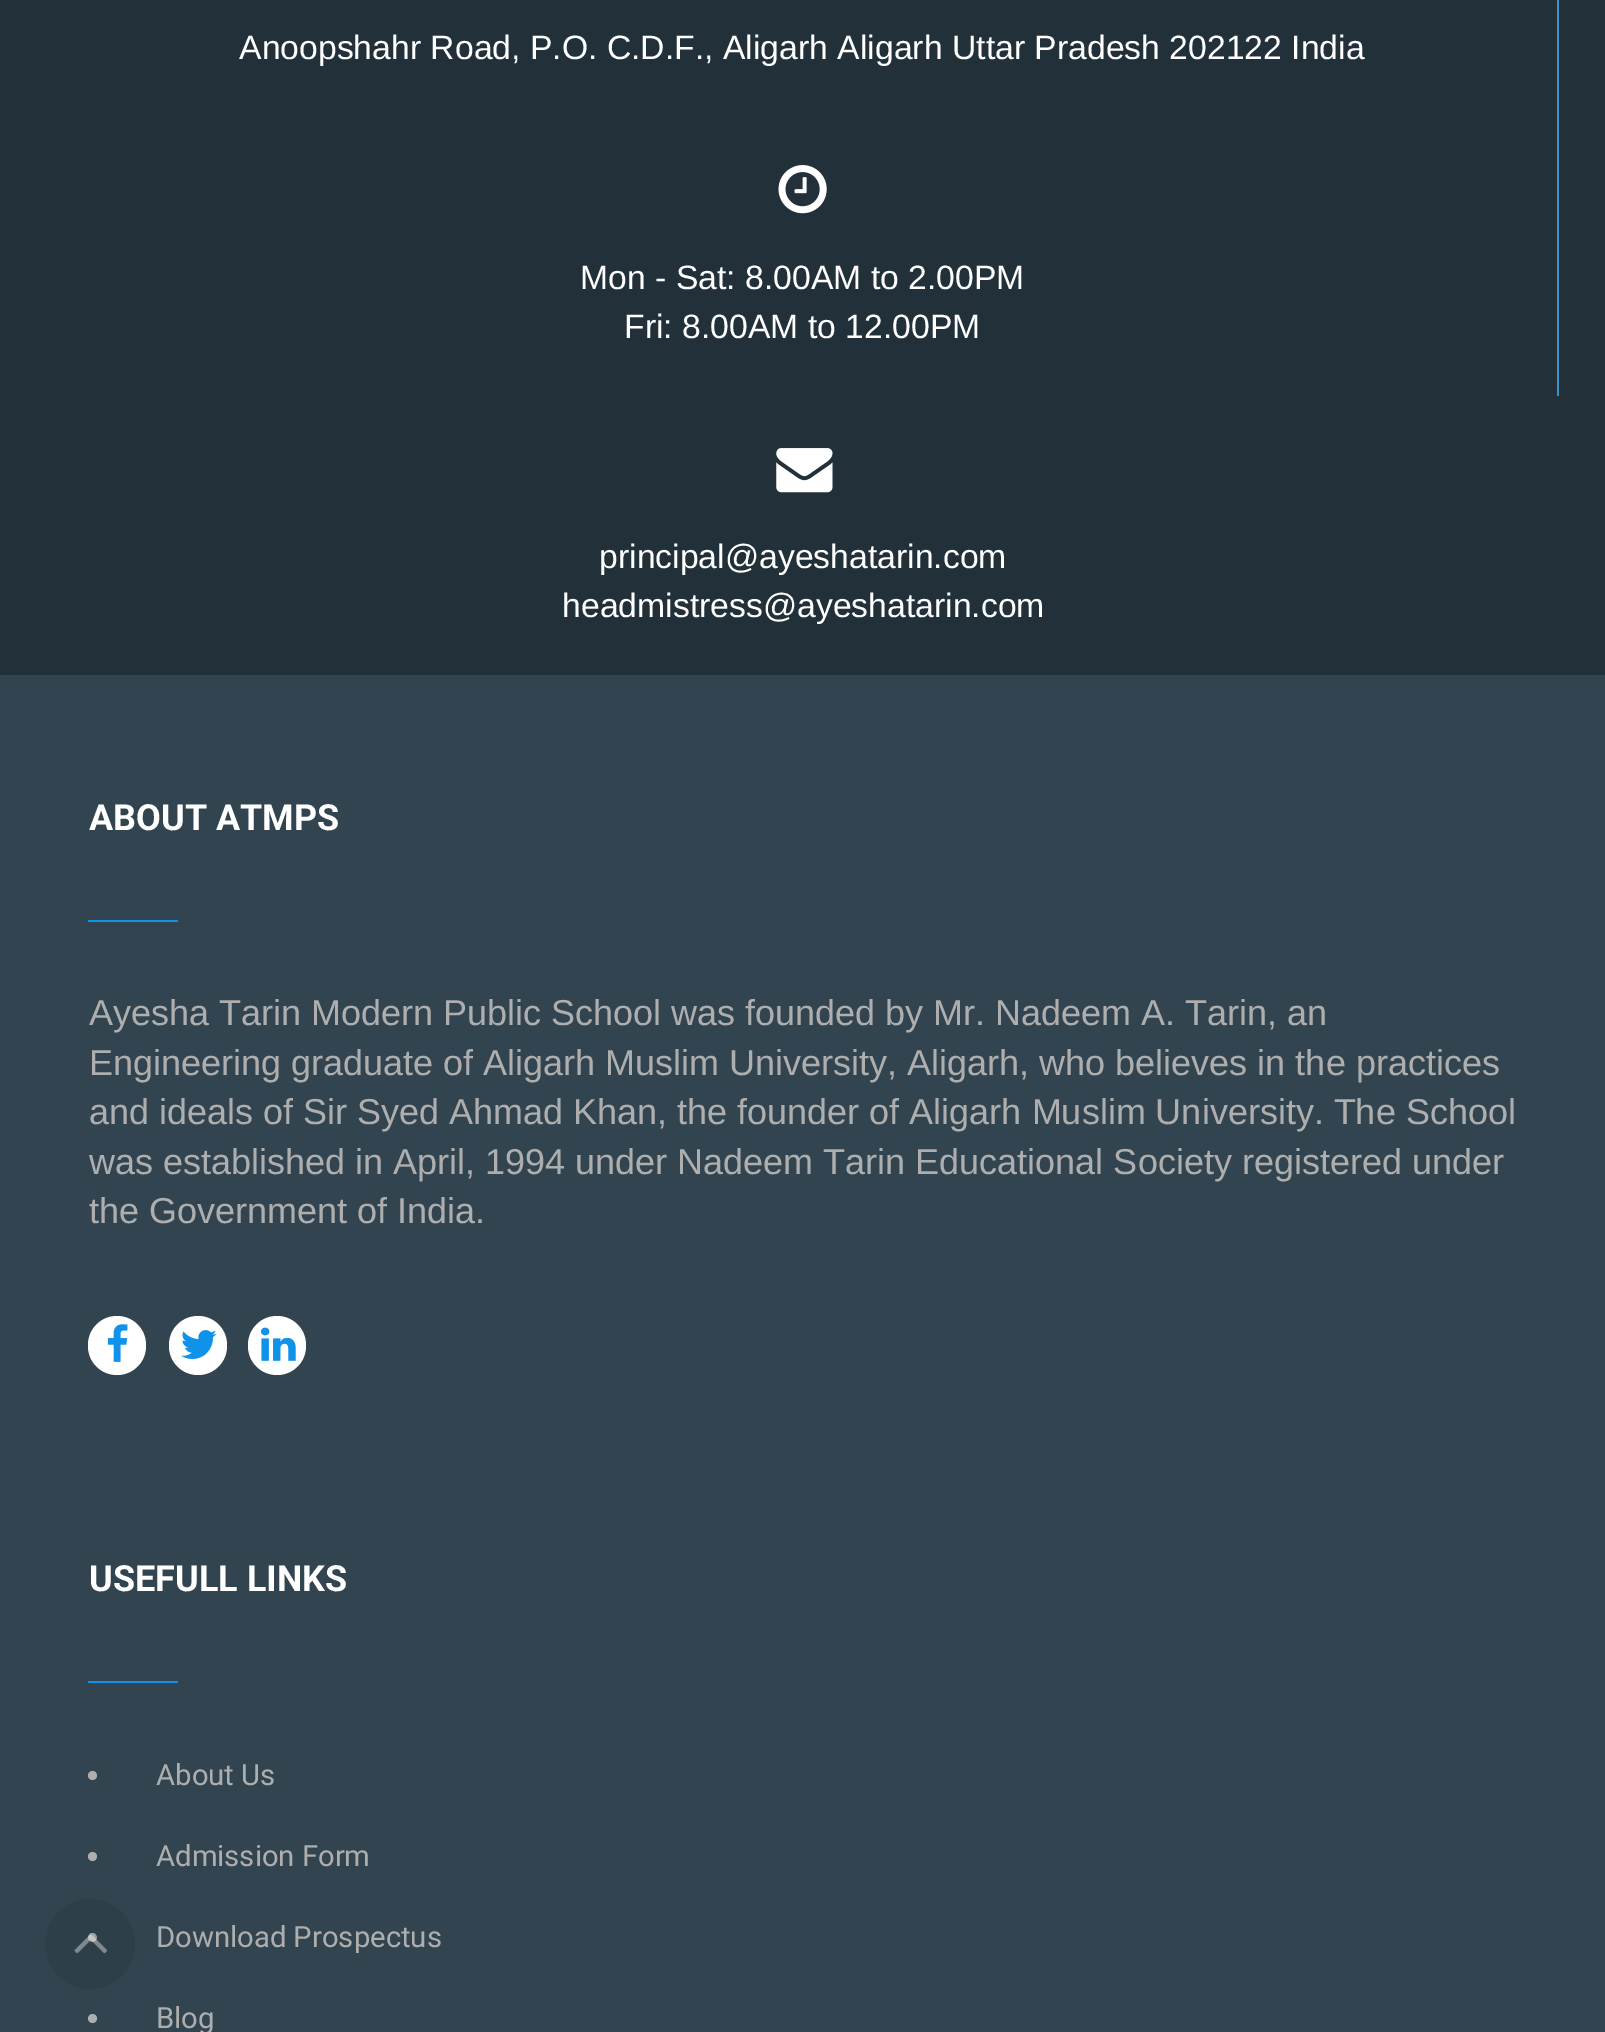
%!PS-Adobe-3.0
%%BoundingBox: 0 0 1605 2032
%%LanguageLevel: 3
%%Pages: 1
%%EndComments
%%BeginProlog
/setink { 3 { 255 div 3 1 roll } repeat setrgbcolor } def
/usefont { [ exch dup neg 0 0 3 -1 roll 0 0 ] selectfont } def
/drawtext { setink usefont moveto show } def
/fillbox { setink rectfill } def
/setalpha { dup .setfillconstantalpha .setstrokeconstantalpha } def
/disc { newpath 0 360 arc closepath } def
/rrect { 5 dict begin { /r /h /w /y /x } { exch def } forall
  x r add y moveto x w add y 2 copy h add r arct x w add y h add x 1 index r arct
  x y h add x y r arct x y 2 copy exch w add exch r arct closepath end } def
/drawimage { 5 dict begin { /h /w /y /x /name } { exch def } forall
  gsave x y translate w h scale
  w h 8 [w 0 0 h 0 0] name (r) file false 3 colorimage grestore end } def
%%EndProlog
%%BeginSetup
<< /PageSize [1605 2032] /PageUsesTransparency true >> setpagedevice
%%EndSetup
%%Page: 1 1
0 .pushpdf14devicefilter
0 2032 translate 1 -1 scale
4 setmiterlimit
0 0 1605 2032 49 68 79 fillbox
0 0 1605 675 33 48 57 fillbox
1557 0 2 396 62 146 202 fillbox
(Anoopshahr Road, P.O. C.D.F., Aligarh Aligarh Uttar Pradesh 202122 India) 239 59 /LiberationSans-Regular 33.75 255 255 255 drawtext
(assets/img1.rgb) 778 165 49 49 drawimage
(Mon - Sat: 8.00AM to 2.00PM) 580 289 /LiberationSans-Regular 33.75 255 255 255 drawtext
(Fri: 8.00AM to 12.00PM) 624 338 /LiberationSans-Regular 33.75 255 255 255 drawtext
(assets/img2.rgb) 776 448 57 45 drawimage
(principal@ayeshatarin.com) 599 568 /LiberationSans-Regular 33.75 255 255 255 drawtext
(headmistress@ayeshatarin.com) 562 617 /LiberationSans-Regular 33.75 255 255 255 drawtext
(ABOUT ATMPS) 89 830 /Roboto-Bold 36 255 255 255 drawtext
88 920 90 2 15 146 234 fillbox
(Ayesha Tarin Modern Public School was founded by Mr. Nadeem A. Tarin, an) 89 1025 /LiberationSans-Regular 36 175 174 174 drawtext
(Engineering graduate of Aligarh Muslim University, Aligarh, who believes in the practices) 89 1075 /LiberationSans-Regular 36 175 174 174 drawtext
(and ideals of Sir Syed Ahmad Khan, the founder of Aligarh Muslim University. The School) 89 1124 /LiberationSans-Regular 36 175 174 174 drawtext
(was established in April, 1994 under Nadeem Tarin Educational Society registered under) 89 1174 /LiberationSans-Regular 36 175 174 174 drawtext
(the Government of India.) 89 1223 /LiberationSans-Regular 36 175 174 174 drawtext
255 255 255 setink
88 1316 58 59 29 rrect fill
(assets/img3.rgb) 107 1324 21 38 drawimage
169 1316 58 59 29 rrect fill
(assets/img4.rgb) 181 1330 36 29 drawimage
248 1316 58 59 29 rrect fill
(assets/img5.rgb) 261 1327 35 34 drawimage
(USEFULL LINKS) 89 1591 /Roboto-Bold 36 255 255 255 drawtext
88 1681 90 2 15 146 234 fillbox
175 174 174 setink
92.5 1775.5 4.5 disc fill
(About Us) 156 1785 /Roboto-Regular 29.25 175 174 174 drawtext
92.5 1856.5 4.5 disc fill
(Admission Form) 156 1866 /Roboto-Regular 29.25 175 174 174 drawtext
92.5 1937.5 4.5 disc fill
(Download Prospectus) 156 1947 /Roboto-Regular 29.25 175 174 174 drawtext
92.5 2018.5 4.5 disc fill
(Blog) 156 2028 /Roboto-Regular 29.25 175 174 174 drawtext
0.08 setalpha
0 0 0 setink
90 1944 45 disc fill
1 setalpha
(assets/img6.rgb) 74 1934 33 20 drawimage
.poppdf14devicefilter showpage
%%EOF
